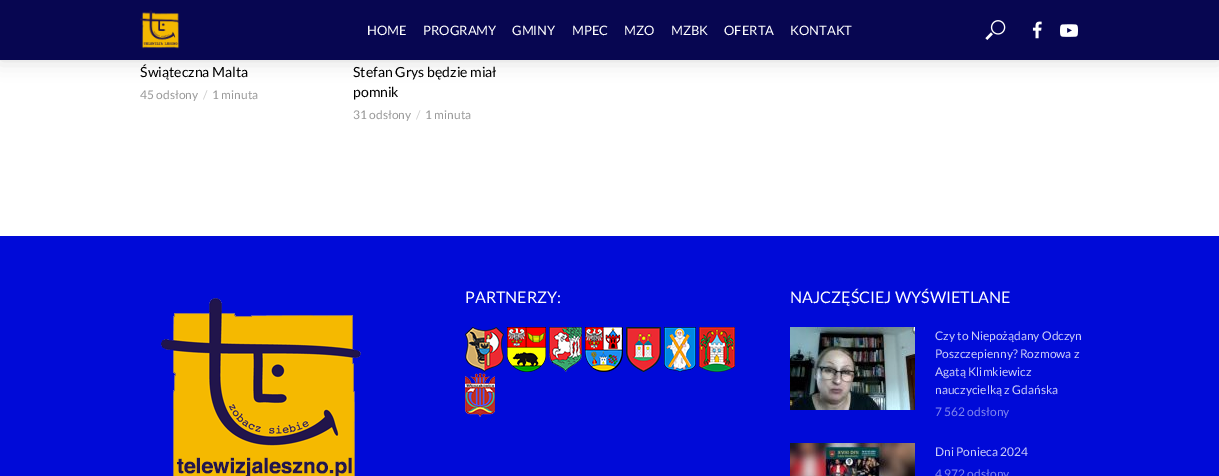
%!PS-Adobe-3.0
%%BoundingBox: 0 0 1219 476
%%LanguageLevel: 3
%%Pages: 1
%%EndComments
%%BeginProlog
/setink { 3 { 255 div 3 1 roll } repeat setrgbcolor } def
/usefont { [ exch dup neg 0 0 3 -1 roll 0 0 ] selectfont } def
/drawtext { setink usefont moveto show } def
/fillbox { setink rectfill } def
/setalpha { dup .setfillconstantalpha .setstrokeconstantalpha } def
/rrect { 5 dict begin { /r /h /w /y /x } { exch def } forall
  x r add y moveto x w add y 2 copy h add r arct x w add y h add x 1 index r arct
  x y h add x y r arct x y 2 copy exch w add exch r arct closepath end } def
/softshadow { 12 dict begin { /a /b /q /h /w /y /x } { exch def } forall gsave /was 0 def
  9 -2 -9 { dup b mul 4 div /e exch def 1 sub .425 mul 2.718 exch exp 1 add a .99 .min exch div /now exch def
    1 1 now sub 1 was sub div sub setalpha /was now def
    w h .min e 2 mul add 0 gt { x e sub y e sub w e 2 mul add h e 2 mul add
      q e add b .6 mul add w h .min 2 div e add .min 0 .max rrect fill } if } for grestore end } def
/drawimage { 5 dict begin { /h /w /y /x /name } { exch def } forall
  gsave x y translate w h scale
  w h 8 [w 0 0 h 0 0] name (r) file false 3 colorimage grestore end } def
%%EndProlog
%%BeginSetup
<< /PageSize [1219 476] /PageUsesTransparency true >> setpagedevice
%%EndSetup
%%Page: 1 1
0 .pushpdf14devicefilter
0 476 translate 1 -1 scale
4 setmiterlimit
0 0 1219 476 255 255 255 fillbox
0 0 0 setink
0 0 1219 60 0 10 0.15 softshadow
0 0 1219 60 7 6 81 fillbox
(assets/img1.rgb) 140 10 40 39 drawimage
(HOME) 367 35 /Lato-Regular 13 255 255 255 drawtext
(PROGRAMY) 423 35 /Lato-Regular 13 255 255 255 drawtext
(GMINY) 512 35 /Lato-Regular 13 255 255 255 drawtext
(MPEC) 572 35 /Lato-Regular 13 255 255 255 drawtext
(MZO) 624 35 /Lato-Regular 13 255 255 255 drawtext
(MZBK) 671 35 /Lato-Regular 13 255 255 255 drawtext
(OFERTA) 724 35 /Lato-Regular 13 255 255 255 drawtext
(KONTAKT) 790 35 /Lato-Regular 13 255 255 255 drawtext
(assets/img2.rgb) 985 20 21 20 drawimage
(assets/img3.rgb) 1032 21 10 18 drawimage
(assets/img4.rgb) 1060 24 18 13 drawimage
(Świąteczna Malta) 140 77 /Lato-Regular 14 0 0 0 drawtext
(45 odsłony) 140 99 /Lato-Regular 12 153 153 153 drawtext
(/) 203 99 /Lato-Regular 12 204 204 204 drawtext
(1 minuta) 212 99 /Lato-Regular 12 153 153 153 drawtext
(Stefan Grys będzie miał) 353 77 /Lato-Regular 14 0 0 0 drawtext
(pomnik) 353 97 /Lato-Regular 14 0 0 0 drawtext
(31 odsłony) 353 119 /Lato-Regular 12 153 153 153 drawtext
(/) 416 119 /Lato-Regular 12 204 204 204 drawtext
(1 minuta) 425 119 /Lato-Regular 12 153 153 153 drawtext
0 236 1219 240 0 10 216 fillbox
(assets/img5.rgb) 161 298 200 178 drawimage
(PARTNERZY:) 465 303 /Lato-Regular 16 255 255 255 drawtext
(assets/img6.rgb) 465 327 39 45 drawimage
(assets/img7.rgb) 507 327 39 45 drawimage
(assets/img8.rgb) 549 327 33 45 drawimage
(assets/img9.rgb) 585 327 38 45 drawimage
(assets/img10.rgb) 626 327 35 45 drawimage
(assets/img11.rgb) 664 327 32 45 drawimage
(assets/img12.rgb) 699 327 36 45 drawimage
(assets/img13.rgb) 465 373 30 44 drawimage
(NAJCZĘŚCIEJ WYŚWIETLANE) 790 303 /Lato-Regular 16 255 255 255 drawtext
(assets/img14.rgb) 790 327 125 83 drawimage
(Czy to Niepożądany Odczyn) 935 340 /Lato-Regular 12 204 206 247 drawtext
(Poszczepienny? Rozmowa z) 935 358 /Lato-Regular 12 204 206 247 drawtext
(Agatą Klimkiewicz) 935 376 /Lato-Regular 12 204 206 247 drawtext
(nauczycielką z Gdańska) 935 394 /Lato-Regular 12 204 206 247 drawtext
(7 562 odsłony) 935 416 /Lato-Regular 12 128 133 236 drawtext
(assets/img15.rgb) 790 443 125 33 drawimage
(Dni Ponieca 2024) 935 456 /Lato-Regular 12 204 206 247 drawtext
(4 972 odsłony) 935 478 /Lato-Regular 12 128 133 236 drawtext
.poppdf14devicefilter showpage
%%EOF
